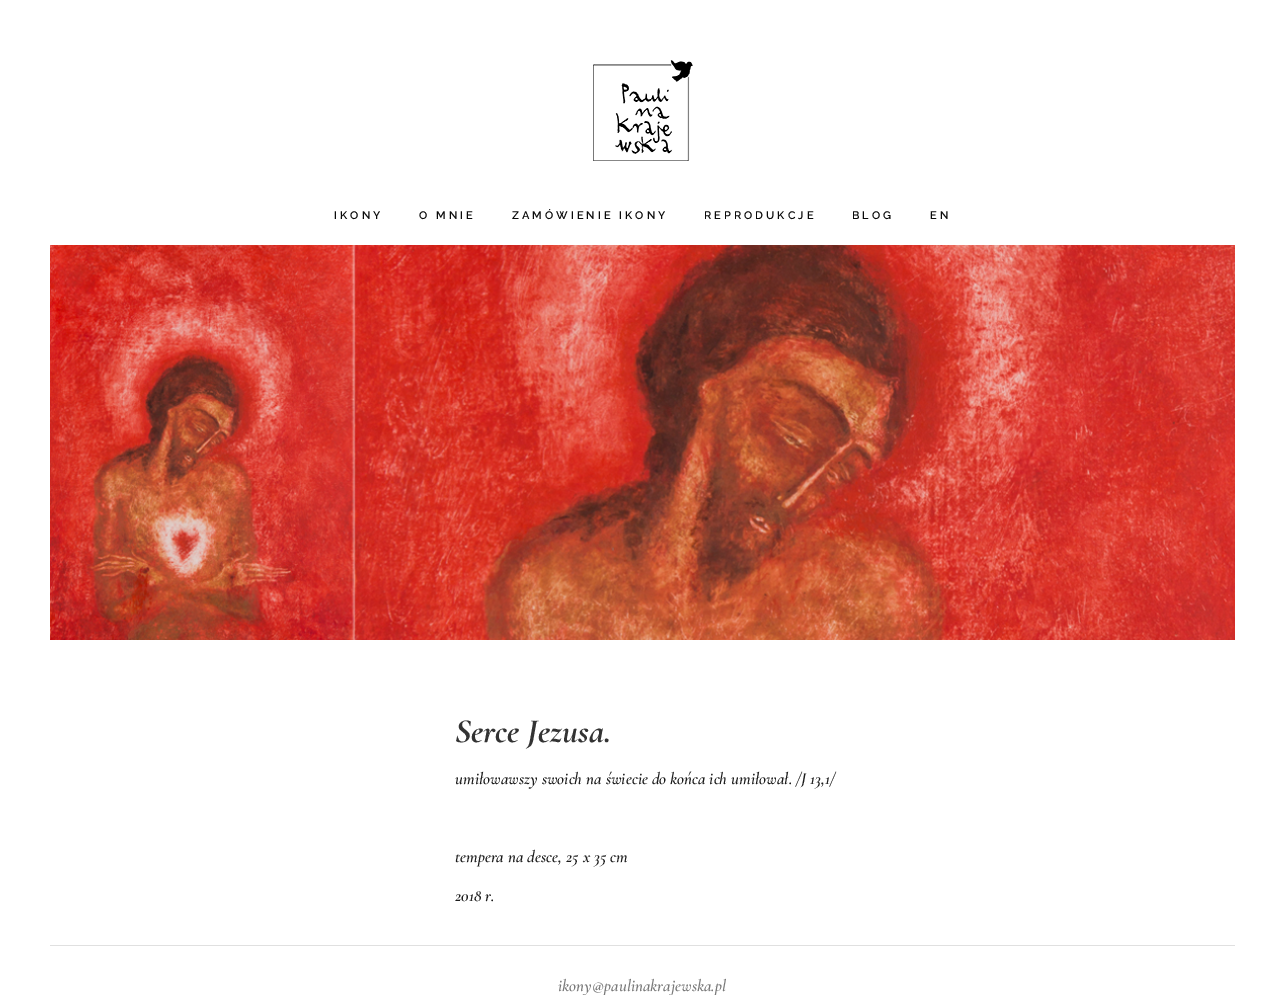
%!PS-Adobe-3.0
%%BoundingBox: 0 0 1285 995
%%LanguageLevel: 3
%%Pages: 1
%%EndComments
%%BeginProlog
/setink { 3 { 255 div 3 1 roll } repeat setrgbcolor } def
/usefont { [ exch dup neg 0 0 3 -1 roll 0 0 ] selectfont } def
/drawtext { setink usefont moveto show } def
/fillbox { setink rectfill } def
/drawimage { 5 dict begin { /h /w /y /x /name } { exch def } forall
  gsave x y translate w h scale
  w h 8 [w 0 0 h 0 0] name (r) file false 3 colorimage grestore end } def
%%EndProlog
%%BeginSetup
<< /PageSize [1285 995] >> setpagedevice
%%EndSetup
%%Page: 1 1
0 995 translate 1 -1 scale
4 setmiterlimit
0 0 1285 995 255 255 255 fillbox
(assets/img1.rgb) 593 60 100 101 drawimage
/Raleway-SemiBold 11 usefont
10 10 10 setink
334 219 moveto 3 0 (IKONY) ashow
419 219 moveto 3 0 (O MNIE) ashow
512 219 moveto 3 0 (ZAMÓWIENIE IKONY) ashow
704 219 moveto 3 0 (REPRODUKCJE) ashow
852 219 moveto 3 0 (BLOG) ashow
930 219 moveto 3 0 (EN) ashow
(assets/img2.rgb) 50 245 1185 395 drawimage
(Serce Jezusa.) 455 742 /CormorantGaramond-BoldItalic 34 51 51 51 drawtext
(umiłowawszy swoich na świecie do końca ich umiłował. /J 13,1/) 455 784 /CormorantGaramond-SemiBoldItalic 17 29 29 29 drawtext
(tempera na desce, 25 x 35 cm) 455 862 /CormorantGaramond-SemiBoldItalic 17 29 29 29 drawtext
(2018 r.) 455 901 /CormorantGaramond-SemiBoldItalic 17 29 29 29 drawtext
50 945 1185 1 224 224 224 fillbox
(ikony@paulinakrajewska.pl) 558 991 /CormorantGaramond-SemiBoldItalic 17 122 122 122 drawtext
showpage
%%EOF
